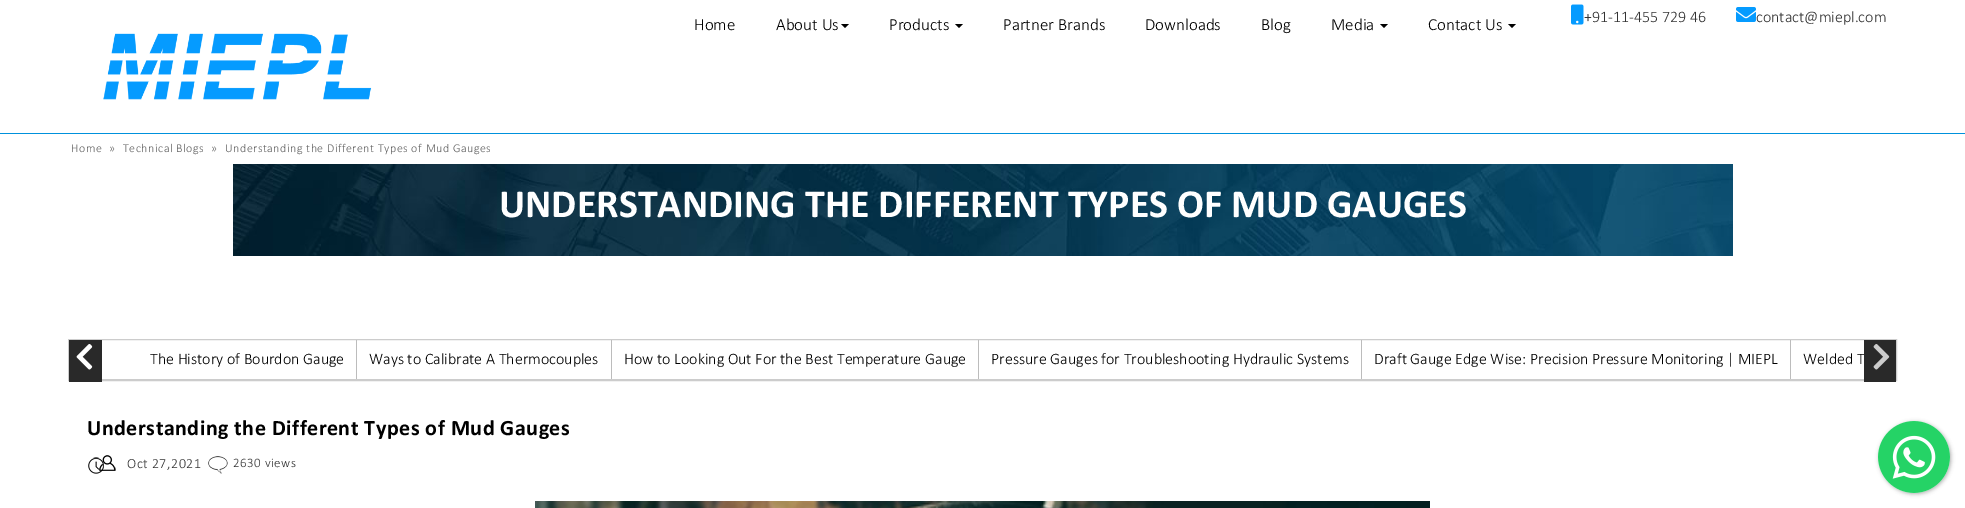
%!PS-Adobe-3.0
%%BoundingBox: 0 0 1965 508
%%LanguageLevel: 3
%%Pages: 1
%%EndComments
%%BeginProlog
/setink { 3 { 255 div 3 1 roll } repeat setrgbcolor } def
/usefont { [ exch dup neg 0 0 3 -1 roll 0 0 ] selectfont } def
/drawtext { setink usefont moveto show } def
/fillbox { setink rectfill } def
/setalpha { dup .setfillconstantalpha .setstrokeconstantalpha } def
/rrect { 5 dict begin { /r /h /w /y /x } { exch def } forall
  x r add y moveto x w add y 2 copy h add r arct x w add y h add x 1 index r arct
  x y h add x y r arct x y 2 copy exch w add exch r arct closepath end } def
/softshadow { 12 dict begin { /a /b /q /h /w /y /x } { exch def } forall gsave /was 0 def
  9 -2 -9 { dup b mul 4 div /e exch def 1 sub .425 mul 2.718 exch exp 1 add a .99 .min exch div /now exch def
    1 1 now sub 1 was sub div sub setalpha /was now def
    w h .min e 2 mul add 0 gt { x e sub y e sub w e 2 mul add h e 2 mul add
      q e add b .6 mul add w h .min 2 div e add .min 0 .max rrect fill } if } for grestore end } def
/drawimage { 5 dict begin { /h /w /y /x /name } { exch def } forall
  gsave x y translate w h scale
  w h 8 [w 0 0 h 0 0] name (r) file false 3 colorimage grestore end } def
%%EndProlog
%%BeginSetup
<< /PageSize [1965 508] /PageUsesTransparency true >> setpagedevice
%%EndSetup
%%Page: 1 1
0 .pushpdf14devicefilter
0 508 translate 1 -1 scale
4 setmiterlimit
0 0 1965 508 255 255 255 fillbox
0 133 1965 1 0 145 220 fillbox
(Home) 694 30 /Calibri-Light 17 0 0 0 drawtext
(About Us) 776 30 /Calibri-Light 17 0 0 0 drawtext
841 24 moveto 849 24 lineto 845 28 lineto closepath fill
(Products) 889 30 /Calibri-Light 17 0 0 0 drawtext
955 24 moveto 963 24 lineto 959 28 lineto closepath fill
(Partner Brands) 1003 30 /Calibri-Light 17 0 0 0 drawtext
(Downloads) 1145 30 /Calibri-Light 17 0 0 0 drawtext
(Blog) 1261 30 /Calibri-Light 17 0 0 0 drawtext
(Media) 1331 30 /Calibri-Light 17 0 0 0 drawtext
1380 24 moveto 1388 24 lineto 1384 28 lineto closepath fill
(Contact Us) 1428 30 /Calibri-Light 17 0 0 0 drawtext
1508 24 moveto 1516 24 lineto 1512 28 lineto closepath fill
(assets/img1.rgb) 103 33 269 67 drawimage
(assets/img2.rgb) 1571 4 13 21 drawimage
(+91-11-455 729 46) 1584 22 /Calibri-Light 16 51 51 51 drawtext
(assets/img3.rgb) 1736 7 20 15 drawimage
(contact@miepl.com) 1756 22 /Calibri-Light 16 51 51 51 drawtext
/Calibri-Light 12 usefont
99 99 99 setink
71 152 moveto 0.5 0 (Home) ashow
109 152 moveto 0.5 0 (») ashow
123 152 moveto 0.5 0 (Technical Blogs) ashow
211 152 moveto 0.5 0 (») ashow
225 152 moveto 0.5 0 (Understanding the Different Types of Mud Gauges) ashow
(assets/img4.rgb) 233 164 1500 92 drawimage
(UNDERSTANDING THE DIFFERENT TYPES OF MUD GAUGES) 499 217 /Calibri-Bold 40 255 255 255 drawtext
204 204 204 setink
68.5 339.5 1828 41 rectstroke
69 340 33 42 41 41 41 fillbox
(assets/img5.rgb) 76 344 17 26 drawimage
(Welded T) 1803 364 /Calibri-Light 16 0 0 0 drawtext
1864 340 32 42 41 41 41 fillbox
(assets/img6.rgb) 1873 344 17 26 drawimage
102 379 1762 1 204 204 204 fillbox
(The History of Bourdon Gauge) 150 364 /Calibri-Light 16 0 0 0 drawtext
356 340 1 39 188 188 188 fillbox
(Ways to Calibrate A Thermocouples) 369 364 /Calibri-Light 16 0 0 0 drawtext
611 340 1 39 188 188 188 fillbox
(How to Looking Out For the Best Temperature Gauge) 624 364 /Calibri-Light 16 0 0 0 drawtext
978 340 1 39 188 188 188 fillbox
(Pressure Gauges for Troubleshooting Hydraulic Systems) 991 364 /Calibri-Light 16 0 0 0 drawtext
1361 340 1 39 188 188 188 fillbox
(Draft Gauge Edge Wise: Precision Pressure Monitoring | MIEPL) 1374 364 /Calibri-Light 16 0 0 0 drawtext
1790 340 1 39 188 188 188 fillbox
/Calibri-Bold 22 usefont
0 0 0 setink
87 435 moveto 0.5 0 (Understanding the Different Types of Mud Gauges) ashow
(assets/img7.rgb) 88 455 28 19 drawimage
/Calibri-Light 14 usefont
51 51 51 setink
127 468 moveto 0.5 0 (Oct 27,2021) ashow
(assets/img8.rgb) 208 456 20 18 drawimage
/Calibri-Light 13 usefont
233 467 moveto 0.5 0 (2630 views) ashow
(assets/img9.rgb) 535 501 895 7 drawimage
60 60 60 setink
1879 422 72 72 36 2 0.4 softshadow
(assets/img10.rgb) 1878 421 72 72 drawimage
.poppdf14devicefilter showpage
%%EOF
